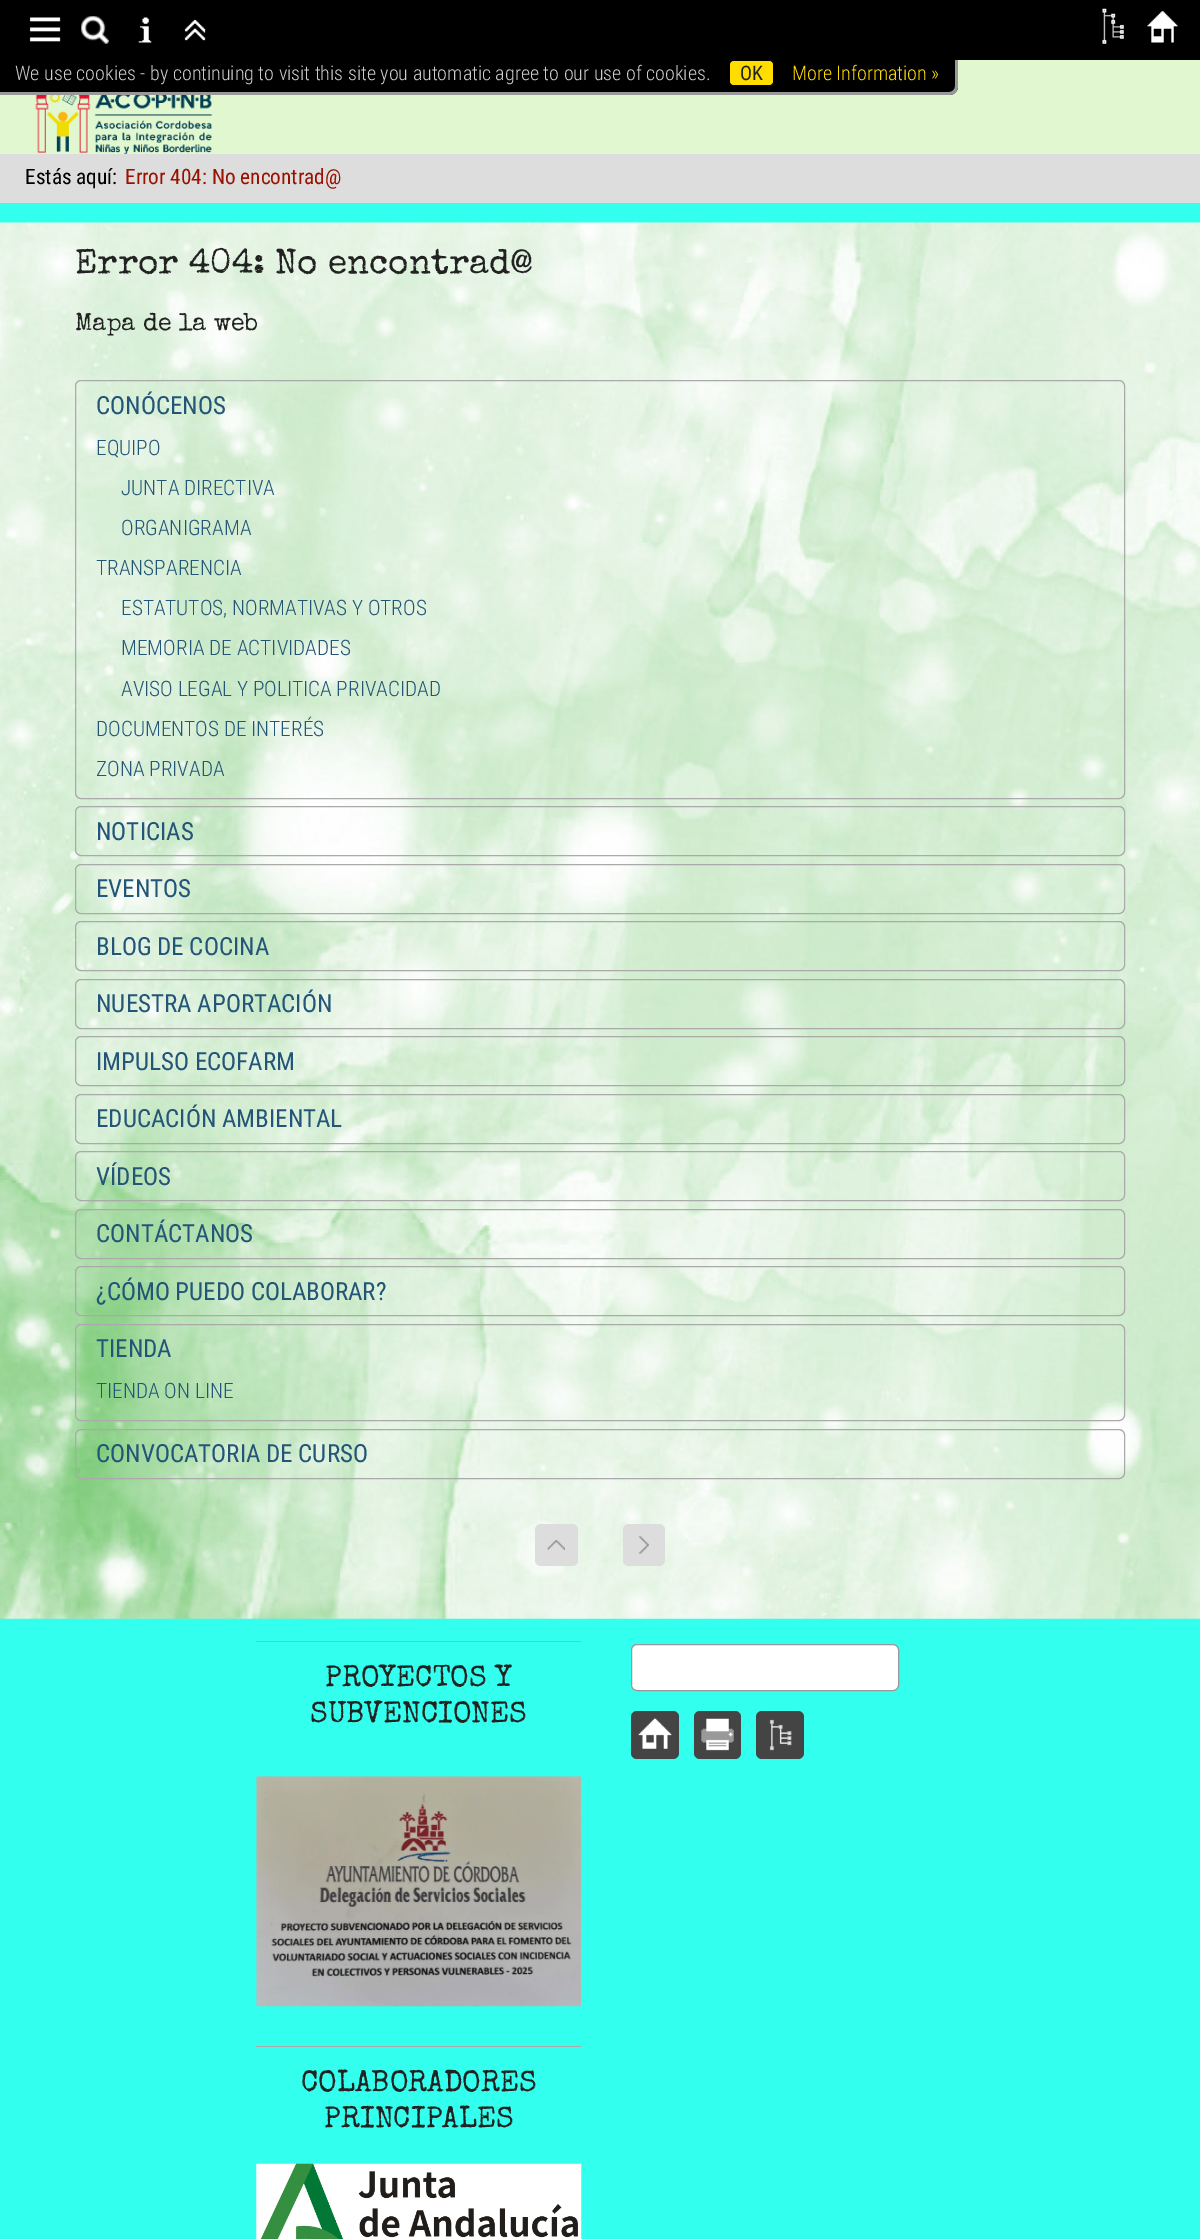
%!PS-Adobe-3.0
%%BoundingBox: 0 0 1200 2239
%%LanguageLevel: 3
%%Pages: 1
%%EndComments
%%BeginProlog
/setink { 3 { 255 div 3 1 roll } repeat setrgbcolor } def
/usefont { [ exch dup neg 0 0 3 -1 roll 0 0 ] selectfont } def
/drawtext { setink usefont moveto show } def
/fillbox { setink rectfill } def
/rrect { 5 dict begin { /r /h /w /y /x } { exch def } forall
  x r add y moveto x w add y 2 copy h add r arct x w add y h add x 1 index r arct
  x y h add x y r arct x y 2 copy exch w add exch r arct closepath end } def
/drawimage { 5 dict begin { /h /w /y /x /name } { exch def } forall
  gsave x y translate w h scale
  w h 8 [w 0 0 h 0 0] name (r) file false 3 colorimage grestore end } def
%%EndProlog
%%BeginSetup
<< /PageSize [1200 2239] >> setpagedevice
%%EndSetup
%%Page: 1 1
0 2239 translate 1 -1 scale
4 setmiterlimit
0 0 1200 2239 51 255 238 fillbox
0 60 1200 94 224 247 208 fillbox
0 0 0 setink
0 0 moveto 958 0 lineto 958 86 lineto 958 91 954 95 949 95 curveto 0 95 lineto closepath fill
153 153 153 setink
0 0 moveto 958 0 lineto 958 86 lineto 958 91 954 95 949 95 curveto 0 95 lineto closepath 0 0 moveto 955 0 lineto 955 86 lineto 955 90 952 92 949 92 curveto 0 92 lineto closepath eofill
955 0 245 60 0 0 0 fillbox
(assets/img1.rgb) 29 17 32 25 drawimage
(assets/img2.rgb) 81 16 28 28 drawimage
(assets/img3.rgb) 138 17 14 26 drawimage
(assets/img4.rgb) 184 19 22 22 drawimage
(assets/img5.rgb) 1102 8 22 36 drawimage
(assets/img6.rgb) 1147 11 31 32 drawimage
(We use cookies - by continuing to visit this site you automatic agree to our use of cookies.) 15 80 /RobotoCondensed-Light 20 204 204 204 drawtext
255 221 0 setink
730 61 43 24 4 rrect fill
(OK) 740 80 /RobotoCondensed-Regular 20 34 34 34 drawtext
(More Information ») 792 80 /RobotoCondensed-Light 20 255 221 0 drawtext
(assets/img7.rgb) 35 95 178 59 drawimage
0 154 1200 49 221 221 221 fillbox
(Estás aquí:) 25 184 /RobotoCondensed-Regular 21.25 0 0 0 drawtext
(Error 404: No encontrad@) 125 184 /RobotoCondensed-Regular 21.25 153 17 0 drawtext
(assets/img8.rgb) 0 222 1200 1397 drawimage
(Error 404: No encontrad@) 75 273 /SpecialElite-Regular 35 34 34 34 drawtext
(Mapa de la web) 75 330 /SpecialElite-Regular 25 34 34 34 drawtext
170 170 170 setink
75.5 380.5 1049 418 5.5 rrect stroke
(CONÓCENOS) 96 414 /RobotoCondensed-Regular 25 34 85 119 drawtext
(EQUIPO) 96 455 /RobotoCondensed-Light 21.25 34 85 119 drawtext
(JUNTA DIRECTIVA) 121 495 /RobotoCondensed-Light 21.25 34 85 119 drawtext
(ORGANIGRAMA) 121 535 /RobotoCondensed-Light 21.25 34 85 119 drawtext
(TRANSPARENCIA) 96 575 /RobotoCondensed-Light 21.25 34 85 119 drawtext
(ESTATUTOS, NORMATIVAS Y OTROS) 121 615 /RobotoCondensed-Light 21.25 34 85 119 drawtext
(MEMORIA DE ACTIVIDADES) 121 655 /RobotoCondensed-Light 21.25 34 85 119 drawtext
(AVISO LEGAL Y POLITICA PRIVACIDAD) 121 696 /RobotoCondensed-Light 21.25 34 85 119 drawtext
(DOCUMENTOS DE INTERÉS) 96 736 /RobotoCondensed-Light 21.25 34 85 119 drawtext
(ZONA PRIVADA) 96 776 /RobotoCondensed-Light 21.25 34 85 119 drawtext
170 170 170 setink
75.5 806.5 1049 49 5.5 rrect stroke
(NOTICIAS) 96 840 /RobotoCondensed-Regular 25 34 85 119 drawtext
170 170 170 setink
75.5 864.5 1049 49 5.5 rrect stroke
(EVENTOS) 96 897 /RobotoCondensed-Regular 25 34 85 119 drawtext
170 170 170 setink
75.5 921.5 1049 49 5.5 rrect stroke
(BLOG DE COCINA) 96 955 /RobotoCondensed-Regular 25 34 85 119 drawtext
170 170 170 setink
75.5 979.5 1049 49 5.5 rrect stroke
(NUESTRA APORTACIÓN) 96 1012 /RobotoCondensed-Regular 25 34 85 119 drawtext
170 170 170 setink
75.5 1036.5 1049 49 5.5 rrect stroke
(IMPULSO ECOFARM) 96 1070 /RobotoCondensed-Regular 25 34 85 119 drawtext
170 170 170 setink
75.5 1094.5 1049 49 5.5 rrect stroke
(EDUCACIÓN AMBIENTAL) 96 1127 /RobotoCondensed-Regular 25 34 85 119 drawtext
170 170 170 setink
75.5 1151.5 1049 49 5.5 rrect stroke
(VÍDEOS) 96 1185 /RobotoCondensed-Regular 25 34 85 119 drawtext
170 170 170 setink
75.5 1209.5 1049 49 5.5 rrect stroke
(CONTÁCTANOS) 96 1242 /RobotoCondensed-Regular 25 34 85 119 drawtext
170 170 170 setink
75.5 1266.5 1049 49 5.5 rrect stroke
(¿CÓMO PUEDO COLABORAR?) 96 1300 /RobotoCondensed-Regular 25 34 85 119 drawtext
170 170 170 setink
75.5 1324.5 1049 96 5.5 rrect stroke
(TIENDA) 96 1357 /RobotoCondensed-Regular 25 34 85 119 drawtext
(TIENDA ON LINE) 96 1398 /RobotoCondensed-Light 21.25 34 85 119 drawtext
170 170 170 setink
75.5 1429.5 1049 49 5.5 rrect stroke
(CONVOCATORIA DE CURSO) 96 1462 /RobotoCondensed-Regular 25 34 85 119 drawtext
221 221 221 setink
535 1524 43 42 6 rrect fill
623 1524 42 42 6 rrect fill
(assets/img9.rgb) 547 1540 18 11 drawimage
(assets/img10.rgb) 638 1536 11 18 drawimage
256 1641 325 1 170 170 170 fillbox
(PROYECTOS Y) 325 1686 /SpecialElite-Regular 30 34 34 34 drawtext
(SUBVENCIONES) 310 1722 /SpecialElite-Regular 30 34 34 34 drawtext
(assets/img11.rgb) 256 1776 326 231 drawimage
256 2046 325 1 170 170 170 fillbox
(COLABORADORES) 301 2091 /SpecialElite-Regular 30 34 34 34 drawtext
(PRINCIPALES) 324 2127 /SpecialElite-Regular 30 34 34 34 drawtext
(assets/img12.rgb) 256 2163 326 76 drawimage
255 255 255 setink
631.5 1644.5 267 46 5.5 rrect gsave fill grestore
153 153 153 setink
stroke
68 68 68 setink
631 1711 48 48 6 rrect fill
(assets/img13.rgb) 638 1718 34 31 drawimage
694 1711 47 48 6 rrect fill
(assets/img14.rgb) 701 1718 33 33 drawimage
756 1711 48 48 6 rrect fill
(assets/img15.rgb) 769 1719 23 32 drawimage
showpage
%%EOF
